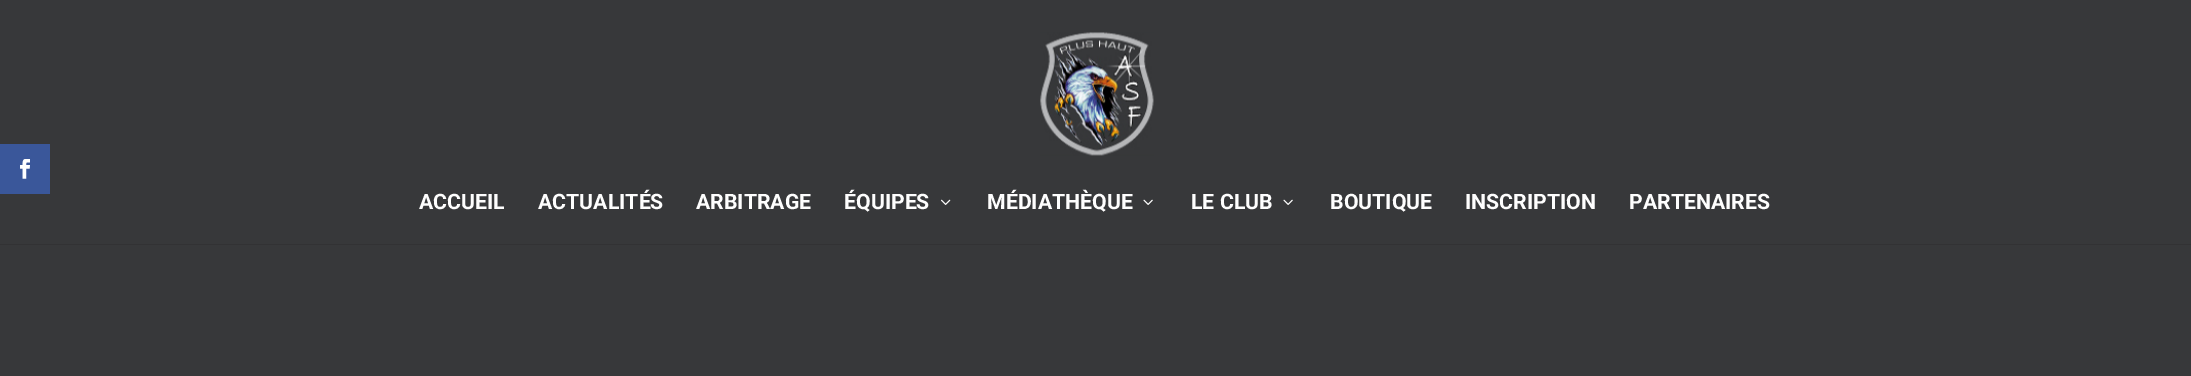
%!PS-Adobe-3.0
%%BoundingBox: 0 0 2191 376
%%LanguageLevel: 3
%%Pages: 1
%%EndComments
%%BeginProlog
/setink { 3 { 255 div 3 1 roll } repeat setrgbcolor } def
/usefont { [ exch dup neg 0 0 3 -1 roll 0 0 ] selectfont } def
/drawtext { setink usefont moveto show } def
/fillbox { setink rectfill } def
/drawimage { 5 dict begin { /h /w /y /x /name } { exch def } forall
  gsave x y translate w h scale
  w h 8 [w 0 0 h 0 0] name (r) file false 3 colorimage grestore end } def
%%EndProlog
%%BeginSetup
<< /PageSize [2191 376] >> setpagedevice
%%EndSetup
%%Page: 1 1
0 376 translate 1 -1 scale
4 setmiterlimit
0 0 2191 376 55 56 58 fillbox
0 144 50 50 58 87 154 fillbox
(assets/img1.rgb) 20 159 10 20 drawimage
0 244 2191 1 50 50 52 fillbox
(assets/img2.rgb) 1040 32 114 124 drawimage
(ACCUEIL) 419 209 /Roboto-Bold 21.25 254 254 254 drawtext
(ACTUALITÉS) 538 209 /Roboto-Bold 21.25 254 254 254 drawtext
(ARBITRAGE) 696 209 /Roboto-Bold 21.25 254 254 254 drawtext
(ÉQUIPES) 844 209 /Roboto-Bold 21.25 254 254 254 drawtext
(assets/img3.rgb) 941 199 10 6 drawimage
(MÉDIATHÈQUE) 987 209 /Roboto-Bold 21.25 254 254 254 drawtext
(assets/img4.rgb) 1143 199 10 6 drawimage
(LE CLUB) 1191 209 /Roboto-Bold 21.25 254 254 254 drawtext
(assets/img4.rgb) 1283 199 10 6 drawimage
(BOUTIQUE) 1330 209 /Roboto-Bold 21.25 254 254 254 drawtext
(INSCRIPTION) 1465 209 /Roboto-Bold 21.25 254 254 254 drawtext
(PARTENAIRES) 1629 209 /Roboto-Bold 21.25 254 254 254 drawtext
showpage
%%EOF
